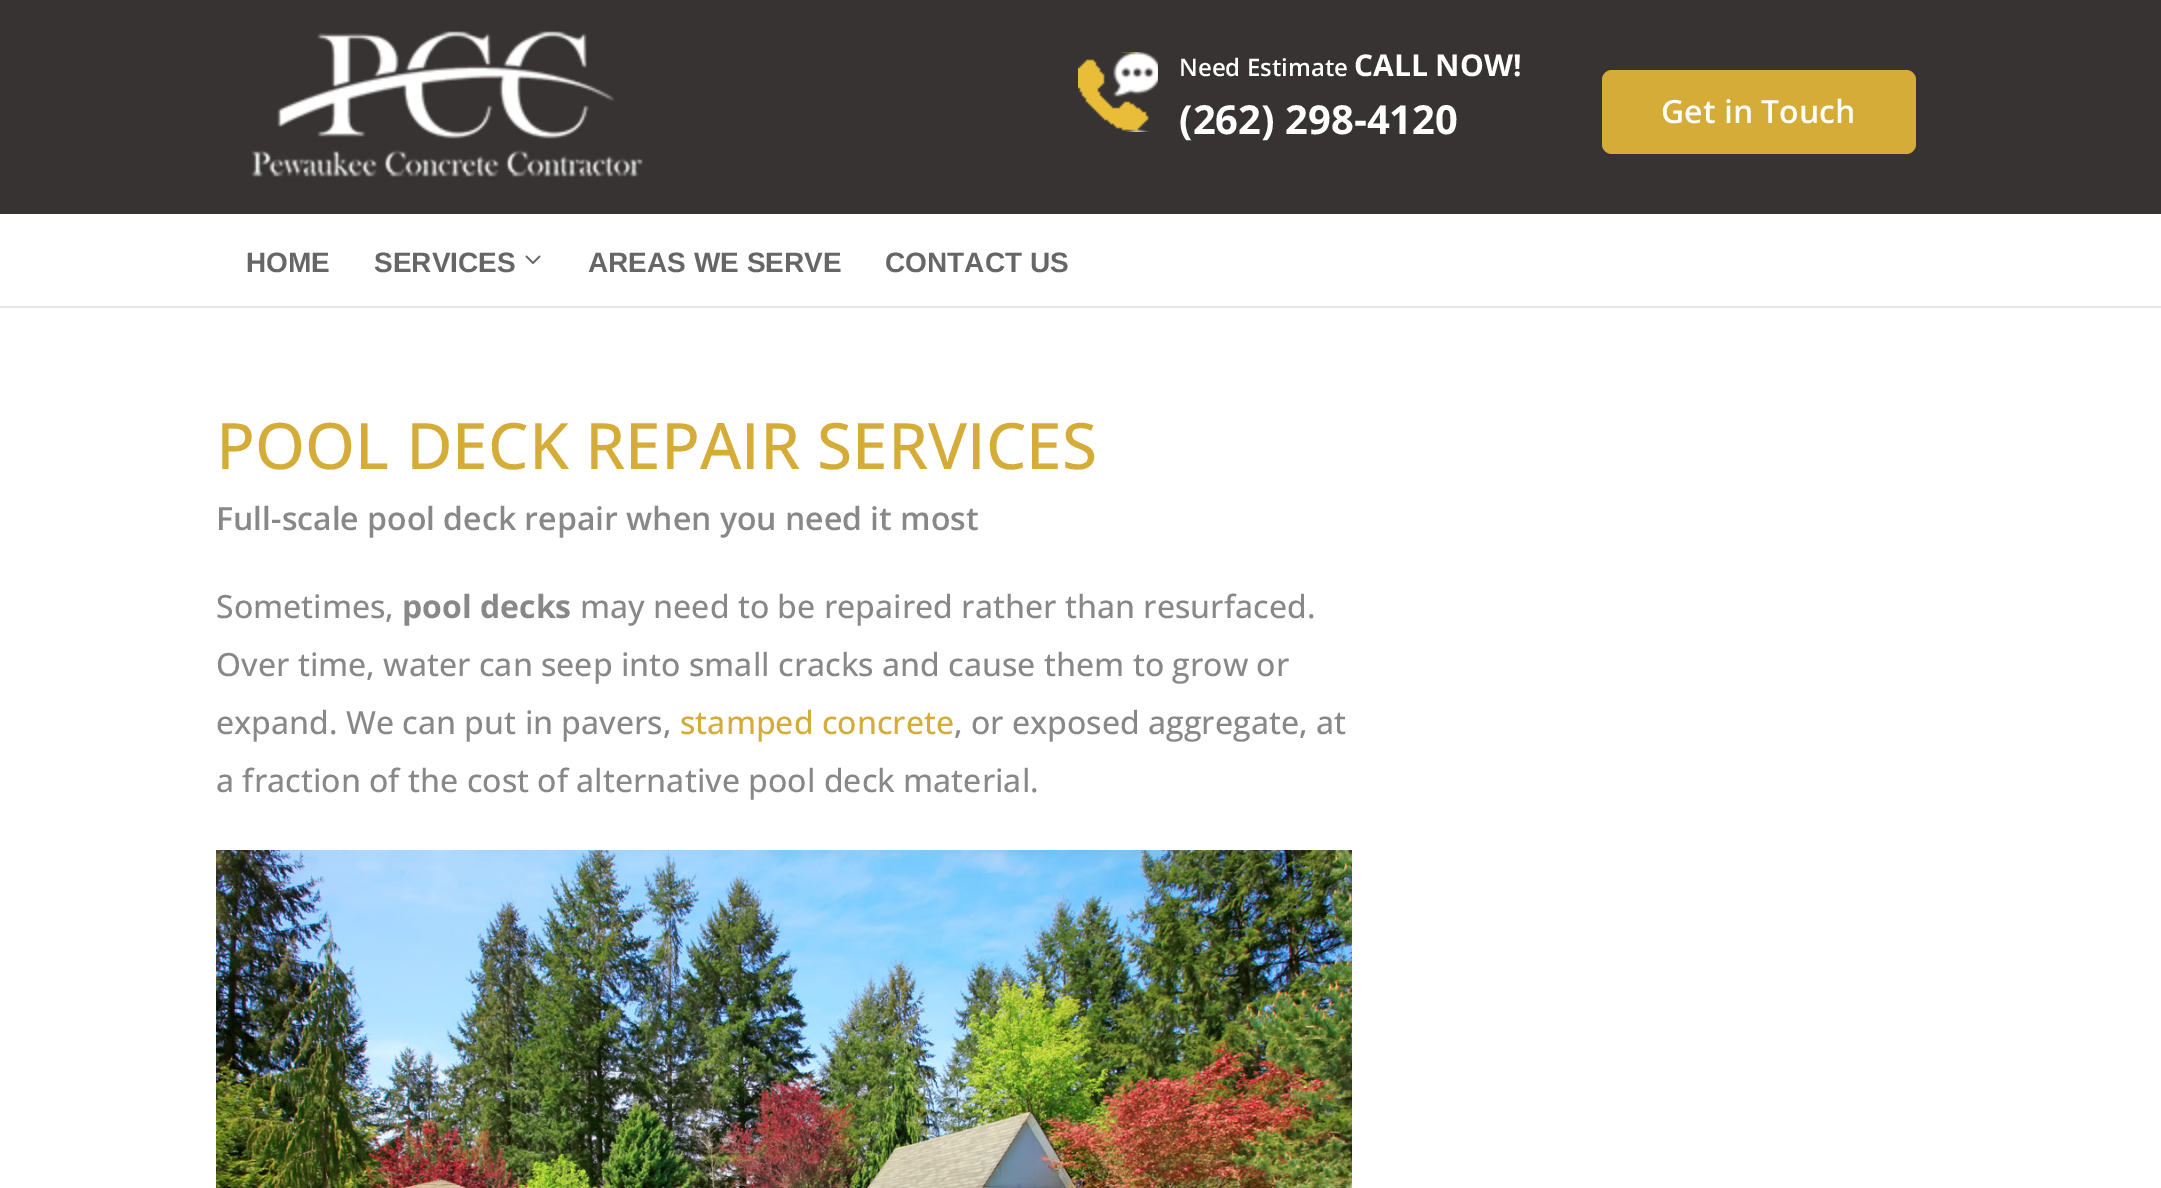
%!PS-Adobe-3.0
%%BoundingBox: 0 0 2161 1188
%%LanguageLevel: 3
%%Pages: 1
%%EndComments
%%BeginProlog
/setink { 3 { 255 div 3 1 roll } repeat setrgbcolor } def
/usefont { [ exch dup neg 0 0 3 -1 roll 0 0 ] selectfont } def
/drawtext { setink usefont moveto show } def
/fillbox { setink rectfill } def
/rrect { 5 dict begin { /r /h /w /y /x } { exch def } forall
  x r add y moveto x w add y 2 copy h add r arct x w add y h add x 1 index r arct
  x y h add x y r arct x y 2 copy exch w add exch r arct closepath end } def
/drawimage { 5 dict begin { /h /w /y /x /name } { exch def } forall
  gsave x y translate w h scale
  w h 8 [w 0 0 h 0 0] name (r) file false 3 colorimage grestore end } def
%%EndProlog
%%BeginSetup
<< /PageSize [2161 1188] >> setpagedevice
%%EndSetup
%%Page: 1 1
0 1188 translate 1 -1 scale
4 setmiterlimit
0 0 2161 1188 56 51 51 fillbox
(assets/img1.rgb) 251 31 392 146 drawimage
(assets/img2.rgb) 1078 52 80 80 drawimage
(Need Estimate) 1179 76 /OpenSans-SemiBold 24 255 255 255 drawtext
(CALL NOW!) 1354 76 /OpenSans-Bold 30 255 255 255 drawtext
(\(262\) 298-4120) 1179 134 /OpenSans-Bold 40 255 255 255 drawtext
212 172 55 setink
1602 70 314 84 10 rrect fill
(Get in Touch) 1661 123 /OpenSans-SemiBold 32 255 255 255 drawtext
0 306 2161 2 230 230 230 fillbox
0 214 2161 92 255 255 255 fillbox
(HOME) 246 272 /LiberationSans-Bold 28 102 102 102 drawtext
(SERVICES) 374 272 /LiberationSans-Bold 28 102 102 102 drawtext
(assets/img3.rgb) 525 255 16 9 drawimage
(AREAS WE SERVE) 588 272 /LiberationSans-Bold 28 102 102 102 drawtext
(CONTACT US) 885 272 /LiberationSans-Bold 28 102 102 102 drawtext
0 308 2161 880 255 255 255 fillbox
(POOL DECK REPAIR SERVICES) 216 469 /OpenSans-Medium 64 212 172 55 drawtext
(Full-scale pool deck repair when you need it most) 216 530 /OpenSans-SemiBold 32 136 136 136 drawtext
(Sometimes,) 216 618 /OpenSans-Medium 32 136 136 136 drawtext
(pool decks) 402 618 /OpenSans-Bold 32 136 136 136 drawtext
(may need to be repaired rather than resurfaced.) 580 618 /OpenSans-Medium 32 136 136 136 drawtext
(Over time, water can seep into small cracks and cause them to grow or) 216 676 /OpenSans-Medium 32 136 136 136 drawtext
(expand. We can put in pavers,) 216 734 /OpenSans-Medium 32 136 136 136 drawtext
(stamped concrete) 680 734 /OpenSans-Medium 32 212 172 55 drawtext
(, or exposed aggregate, at) 954 734 /OpenSans-Medium 32 136 136 136 drawtext
(a fraction of the cost of alternative pool deck material.) 216 792 /OpenSans-Medium 32 136 136 136 drawtext
(assets/img4.rgb) 216 850 1136 338 drawimage
showpage
%%EOF
